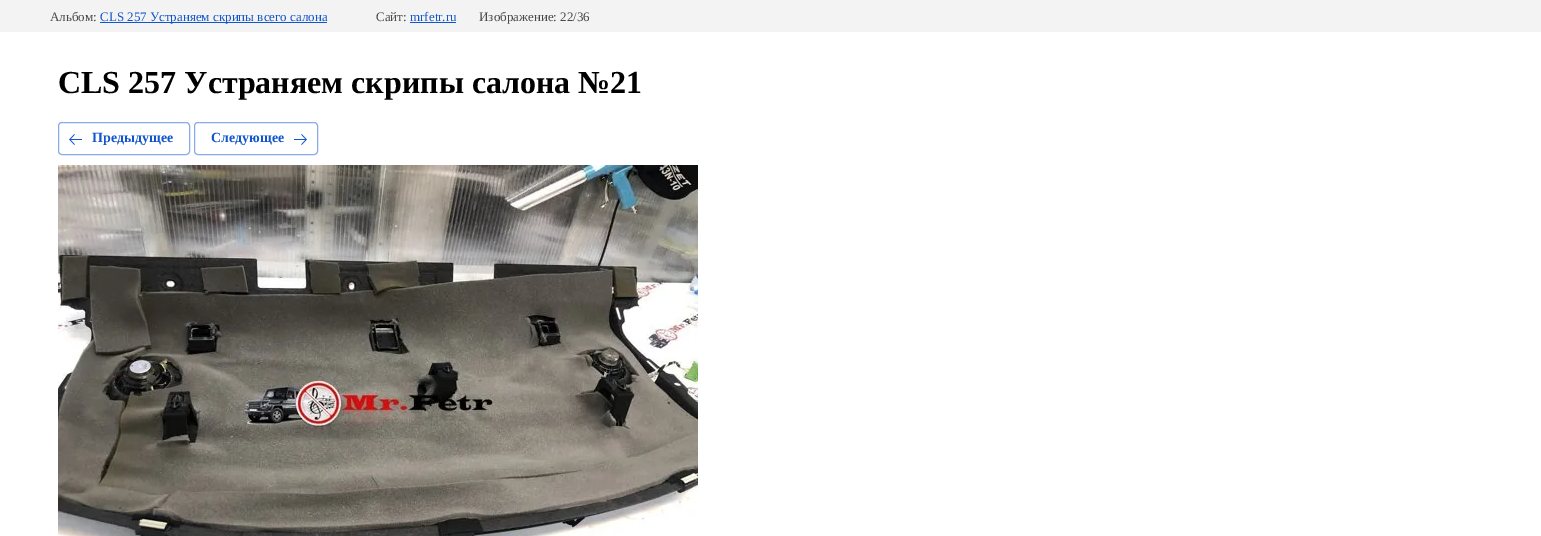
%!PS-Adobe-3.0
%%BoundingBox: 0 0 1541 536
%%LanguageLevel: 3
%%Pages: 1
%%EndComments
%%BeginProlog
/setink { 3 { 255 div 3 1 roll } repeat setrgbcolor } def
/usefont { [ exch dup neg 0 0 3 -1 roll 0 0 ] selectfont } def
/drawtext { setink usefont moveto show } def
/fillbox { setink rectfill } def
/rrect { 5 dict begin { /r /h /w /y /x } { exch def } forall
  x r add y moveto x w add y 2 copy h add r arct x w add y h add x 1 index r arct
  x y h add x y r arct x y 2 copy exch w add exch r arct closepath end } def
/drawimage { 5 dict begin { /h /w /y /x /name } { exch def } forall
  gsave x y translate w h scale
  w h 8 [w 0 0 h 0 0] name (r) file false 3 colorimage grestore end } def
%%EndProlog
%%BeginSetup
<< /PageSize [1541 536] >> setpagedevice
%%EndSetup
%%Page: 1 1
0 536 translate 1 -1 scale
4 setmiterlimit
0 0 1541 536 255 255 255 fillbox
0 0 1541 32 243 243 243 fillbox
(Альбом:) 50 21 /LiberationSerif-Regular 13 72 72 72 drawtext
100 22 227 1 17 85 204 fillbox
(CLS 257 Устраняем скрипы всего салона) 100 21 /LiberationSerif-Regular 13 17 85 204 drawtext
(Сайт:) 376 21 /LiberationSerif-Regular 13 72 72 72 drawtext
(mrfetr.ru) 410 21 /LiberationSerif-Regular 13 17 85 204 drawtext
410 22 46 1 17 85 204 fillbox
(Изображение: 22/36) 479 21 /LiberationSerif-Regular 13 72 72 72 drawtext
(CLS 257 Устраняем скрипы салона №21) 58 93 /LiberationSerif-Bold 32 0 0 0 drawtext
136 170 230 setink
58.5 122.5 131 32 3.5 rrect stroke
(assets/img1.rgb) 69 134 13 11 drawimage
(Предыдущее) 92 142 /LiberationSerif-Bold 14 17 85 204 drawtext
136 170 230 setink
194.5 122.5 123 32 3.5 rrect stroke
(Следующее) 211 142 /LiberationSerif-Bold 14 17 85 204 drawtext
(assets/img2.rgb) 294 134 13 11 drawimage
(assets/img3.rgb) 58 165 640 371 drawimage
showpage
%%EOF
